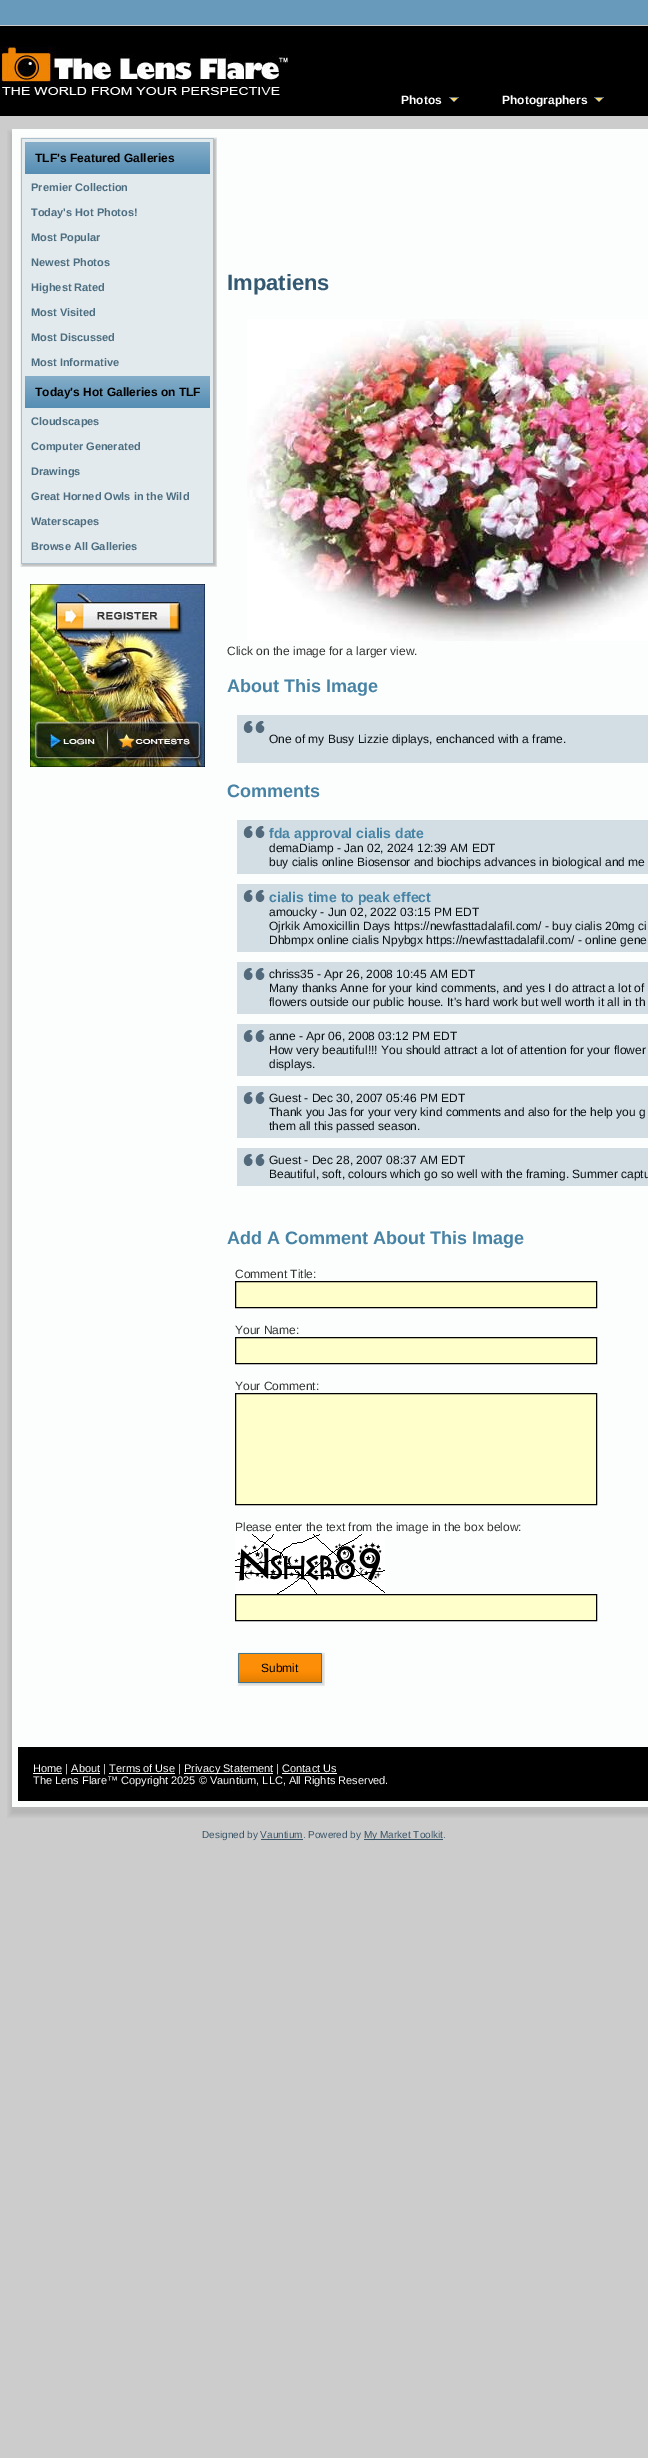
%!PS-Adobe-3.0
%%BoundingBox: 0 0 648 2458
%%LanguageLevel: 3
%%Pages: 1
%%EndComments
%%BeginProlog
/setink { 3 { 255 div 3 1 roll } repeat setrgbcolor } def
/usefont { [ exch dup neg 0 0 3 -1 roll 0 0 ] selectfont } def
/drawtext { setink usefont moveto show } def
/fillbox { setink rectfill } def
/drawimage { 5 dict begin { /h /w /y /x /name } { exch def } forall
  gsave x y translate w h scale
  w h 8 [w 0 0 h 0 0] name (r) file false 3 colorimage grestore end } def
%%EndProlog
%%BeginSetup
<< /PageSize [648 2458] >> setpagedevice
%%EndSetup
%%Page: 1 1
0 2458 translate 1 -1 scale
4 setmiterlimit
0 0 648 2458 204 204 204 fillbox
0 0 648 25 104 154 188 fillbox
0 26 648 90 0 0 0 fillbox
(assets/img1.rgb) 0 46 288 50 drawimage
(Photos) 401 104 /LiberationSans-Bold 12 255 255 255 drawtext
449 97 10 1 94 108 120 fillbox
451 98 6 1 247 213 106 fillbox
457 98 1 1 94 108 120 fillbox
450 98 1 1 94 108 120 fillbox
452 99 4 1 247 213 106 fillbox
456 99 1 1 94 108 120 fillbox
451 99 1 1 94 108 120 fillbox
453 100 2 1 247 213 106 fillbox
455 100 1 1 94 108 120 fillbox
452 100 1 1 94 108 120 fillbox
453 101 2 1 94 108 120 fillbox
(Photographers) 502 104 /LiberationSans-Bold 12 255 255 255 drawtext
594 97 10 1 94 108 120 fillbox
596 98 6 1 247 213 106 fillbox
602 98 1 1 94 108 120 fillbox
595 98 1 1 94 108 120 fillbox
597 99 4 1 247 213 106 fillbox
601 99 1 1 94 108 120 fillbox
596 99 1 1 94 108 120 fillbox
598 100 2 1 247 213 106 fillbox
600 100 1 1 94 108 120 fillbox
597 100 1 1 94 108 120 fillbox
598 101 2 1 94 108 120 fillbox
(assets/img2.rgb) 7 129 47 42 drawimage
54 129 594 1618 252 253 253 fillbox
(assets/img3.rgb) 7 171 47 1594 drawimage
(assets/img4.rgb) 20 137 11 11 drawimage
(assets/img5.rgb) 31 137 173 5 drawimage
(assets/img6.rgb) 204 137 13 11 drawimage
(assets/img7.rgb) 20 148 11 406 drawimage
(assets/img9.rgb) 204 148 13 406 drawimage
(assets/img8.rgb) 25 142 185 32 drawimage
(TLF's Featured Galleries) 35 162 /LiberationSans-Bold 12 0 0 0 drawtext
31 174 173 380 226 234 238 fillbox
(Premier Collection) 31 191 /LiberationSans-Bold 11 77 110 128 drawtext
(Today's Hot Photos!) 31 216 /LiberationSans-Bold 11 77 110 128 drawtext
(Most Popular) 31 241 /LiberationSans-Bold 11 77 110 128 drawtext
(Newest Photos) 31 266 /LiberationSans-Bold 11 77 110 128 drawtext
(Highest Rated) 31 291 /LiberationSans-Bold 11 77 110 128 drawtext
(Most Visited) 31 316 /LiberationSans-Bold 11 77 110 128 drawtext
(Most Discussed) 31 341 /LiberationSans-Bold 11 77 110 128 drawtext
(Most Informative) 31 366 /LiberationSans-Bold 11 77 110 128 drawtext
(assets/img8.rgb) 25 376 185 32 drawimage
(Today's Hot Galleries on TLF) 35 396 /LiberationSans-Bold 12 0 0 0 drawtext
(Cloudscapes) 31 425 /LiberationSans-Bold 11 77 110 128 drawtext
(Computer Generated) 31 450 /LiberationSans-Bold 11 77 110 128 drawtext
(Drawings) 31 475 /LiberationSans-Bold 11 77 110 128 drawtext
(Great Horned Owls in the Wild) 31 500 /LiberationSans-Bold 11 77 110 128 drawtext
(Waterscapes) 31 525 /LiberationSans-Bold 11 77 110 128 drawtext
(Browse All Galleries) 31 550 /LiberationSans-Bold 11 77 110 128 drawtext
(assets/img10.rgb) 20 554 11 13 drawimage
(assets/img11.rgb) 31 554 173 13 drawimage
(assets/img12.rgb) 204 554 13 13 drawimage
(assets/img13.rgb) 30 584 175 183 drawimage
(Impatiens) 227 290 /LiberationSans-Bold 22 51 88 113 drawtext
(assets/img14.rgb) 247 319 401 322 drawimage
(Click on the image for a larger view.) 227 655 /LiberationSans-Regular 12 51 51 51 drawtext
(About This Image) 227 692 /LiberationSans-Bold 18 70 131 164 drawtext
237 715 411 48 210 222 228 fillbox
(assets/img15.rgb) 243 721 22 12 drawimage
(One of my Busy Lizzie diplays, enchanced with a frame.) 269 743 /LiberationSans-Regular 12 11 16 19 drawtext
(Comments) 227 797 /LiberationSans-Bold 18 70 131 164 drawtext
237 820 411 54 210 222 228 fillbox
(assets/img15.rgb) 243 826 22 12 drawimage
(fda approval cialis date) 269 838 /LiberationSans-Bold 14 70 131 164 drawtext
(demaDiamp - Jan 02, 2024 12:39 AM EDT) 269 852 /LiberationSans-Regular 12 11 16 19 drawtext
(buy cialis online Biosensor and biochips advances in biological and me) 269 866 /LiberationSans-Regular 12 11 16 19 drawtext
237 884 411 68 210 222 228 fillbox
(assets/img15.rgb) 243 890 22 12 drawimage
(cialis time to peak effect) 269 902 /LiberationSans-Bold 14 70 131 164 drawtext
(amoucky - Jun 02, 2022 03:15 PM EDT) 269 916 /LiberationSans-Regular 12 11 16 19 drawtext
(Ojrkik Amoxicillin Days https://newfasttadalafil.com/ - buy cialis 20mg ci) 269 930 /LiberationSans-Regular 12 11 16 19 drawtext
(Dhbmpx online cialis Npybgx https://newfasttadalafil.com/ - online gene) 269 944 /LiberationSans-Regular 12 11 16 19 drawtext
237 962 411 52 210 222 228 fillbox
(assets/img15.rgb) 243 968 22 12 drawimage
(chriss35 - Apr 26, 2008 10:45 AM EDT) 269 978 /LiberationSans-Regular 12 11 16 19 drawtext
(Many thanks Anne for your kind comments, and yes I do attract a lot of) 269 992 /LiberationSans-Regular 12 11 16 19 drawtext
(flowers outside our public house. It's hard work but well worth it all in th) 269 1006 /LiberationSans-Regular 12 11 16 19 drawtext
237 1024 411 52 210 222 228 fillbox
(assets/img15.rgb) 243 1030 22 12 drawimage
(anne - Apr 06, 2008 03:12 PM EDT) 269 1040 /LiberationSans-Regular 12 11 16 19 drawtext
(How very beautiful!!! You should attract a lot of attention for your flower) 269 1054 /LiberationSans-Regular 12 11 16 19 drawtext
(displays.) 269 1068 /LiberationSans-Regular 12 11 16 19 drawtext
237 1086 411 52 210 222 228 fillbox
(assets/img15.rgb) 243 1092 22 12 drawimage
(Guest - Dec 30, 2007 05:46 PM EDT) 269 1102 /LiberationSans-Regular 12 11 16 19 drawtext
(Thank you Jas for your very kind comments and also for the help you g) 269 1116 /LiberationSans-Regular 12 11 16 19 drawtext
(them all this passed season.) 269 1130 /LiberationSans-Regular 12 11 16 19 drawtext
237 1148 411 38 210 222 228 fillbox
(assets/img15.rgb) 243 1154 22 12 drawimage
(Guest - Dec 28, 2007 08:37 AM EDT) 269 1164 /LiberationSans-Regular 12 11 16 19 drawtext
(Beautiful, soft, colours which go so well with the framing. Summer captu) 269 1178 /LiberationSans-Regular 12 11 16 19 drawtext
(Add A Comment About This Image) 227 1244 /LiberationSans-Bold 18 70 131 164 drawtext
(Comment Title:) 235 1278 /LiberationSans-Regular 12 51 51 51 drawtext
255 255 204 setink
235.5 1281.5 moveto 596.5 1281.5 lineto 596.5 1307.5 lineto 235.5 1307.5 lineto closepath gsave fill grestore
0 0 0 setink
stroke
(Your Name:) 235 1334 /LiberationSans-Regular 12 51 51 51 drawtext
255 255 204 setink
235.5 1337.5 moveto 596.5 1337.5 lineto 596.5 1363.5 lineto 235.5 1363.5 lineto closepath gsave fill grestore
0 0 0 setink
stroke
(Your Comment:) 235 1390 /LiberationSans-Regular 12 51 51 51 drawtext
255 255 204 setink
235.5 1393.5 moveto 596.5 1393.5 lineto 596.5 1504.5 lineto 235.5 1504.5 lineto closepath gsave fill grestore
0 0 0 setink
stroke
(Please enter the text from the image in the box below:) 235 1531 /LiberationSans-Regular 12 51 51 51 drawtext
(assets/img16.rgb) 235 1534 150 60 drawimage
255 255 204 setink
235.5 1594.5 moveto 596.5 1594.5 lineto 596.5 1620.5 lineto 235.5 1620.5 lineto closepath gsave fill grestore
0 0 0 setink
stroke
(assets/img17.rgb) 237 1652 81 34 drawimage
(assets/img18.rgb) 318 1652 7 34 drawimage
(Submit) 261 1672 /LiberationSans-Regular 12 0 0 0 drawtext
(assets/img19.rgb) 7 1765 47 53 drawimage
18 1747 630 54 0 0 0 fillbox
33 1773 29 1 255 255 255 fillbox
(Home | About | Terms of Use |) 33 1772 /LiberationSans-Regular 11 255 255 255 drawtext
184 1773 89 1 255 255 255 fillbox
(Privacy Statement | Contact Us) 184 1772 /LiberationSans-Regular 11 255 255 255 drawtext
71 1773 29 1 255 255 255 fillbox
109 1773 66 1 255 255 255 fillbox
282 1773 55 1 255 255 255 fillbox
(The Lens Flare™ Copyright 2025 © Vauntium, LLC, All Rights Reserved.) 33 1784 /LiberationSans-Regular 11 255 255 255 drawtext
(assets/img20.rgb) 54 1801 594 17 drawimage
(Designed by Vauntium. Powered by) 202 1838 /LiberationSans-Regular 10 56 84 102 drawtext
364 1839 79 1 56 84 102 fillbox
(My Market Toolkit.) 364 1838 /LiberationSans-Regular 10 56 84 102 drawtext
261 1839 42 1 56 84 102 fillbox
showpage
%%EOF
